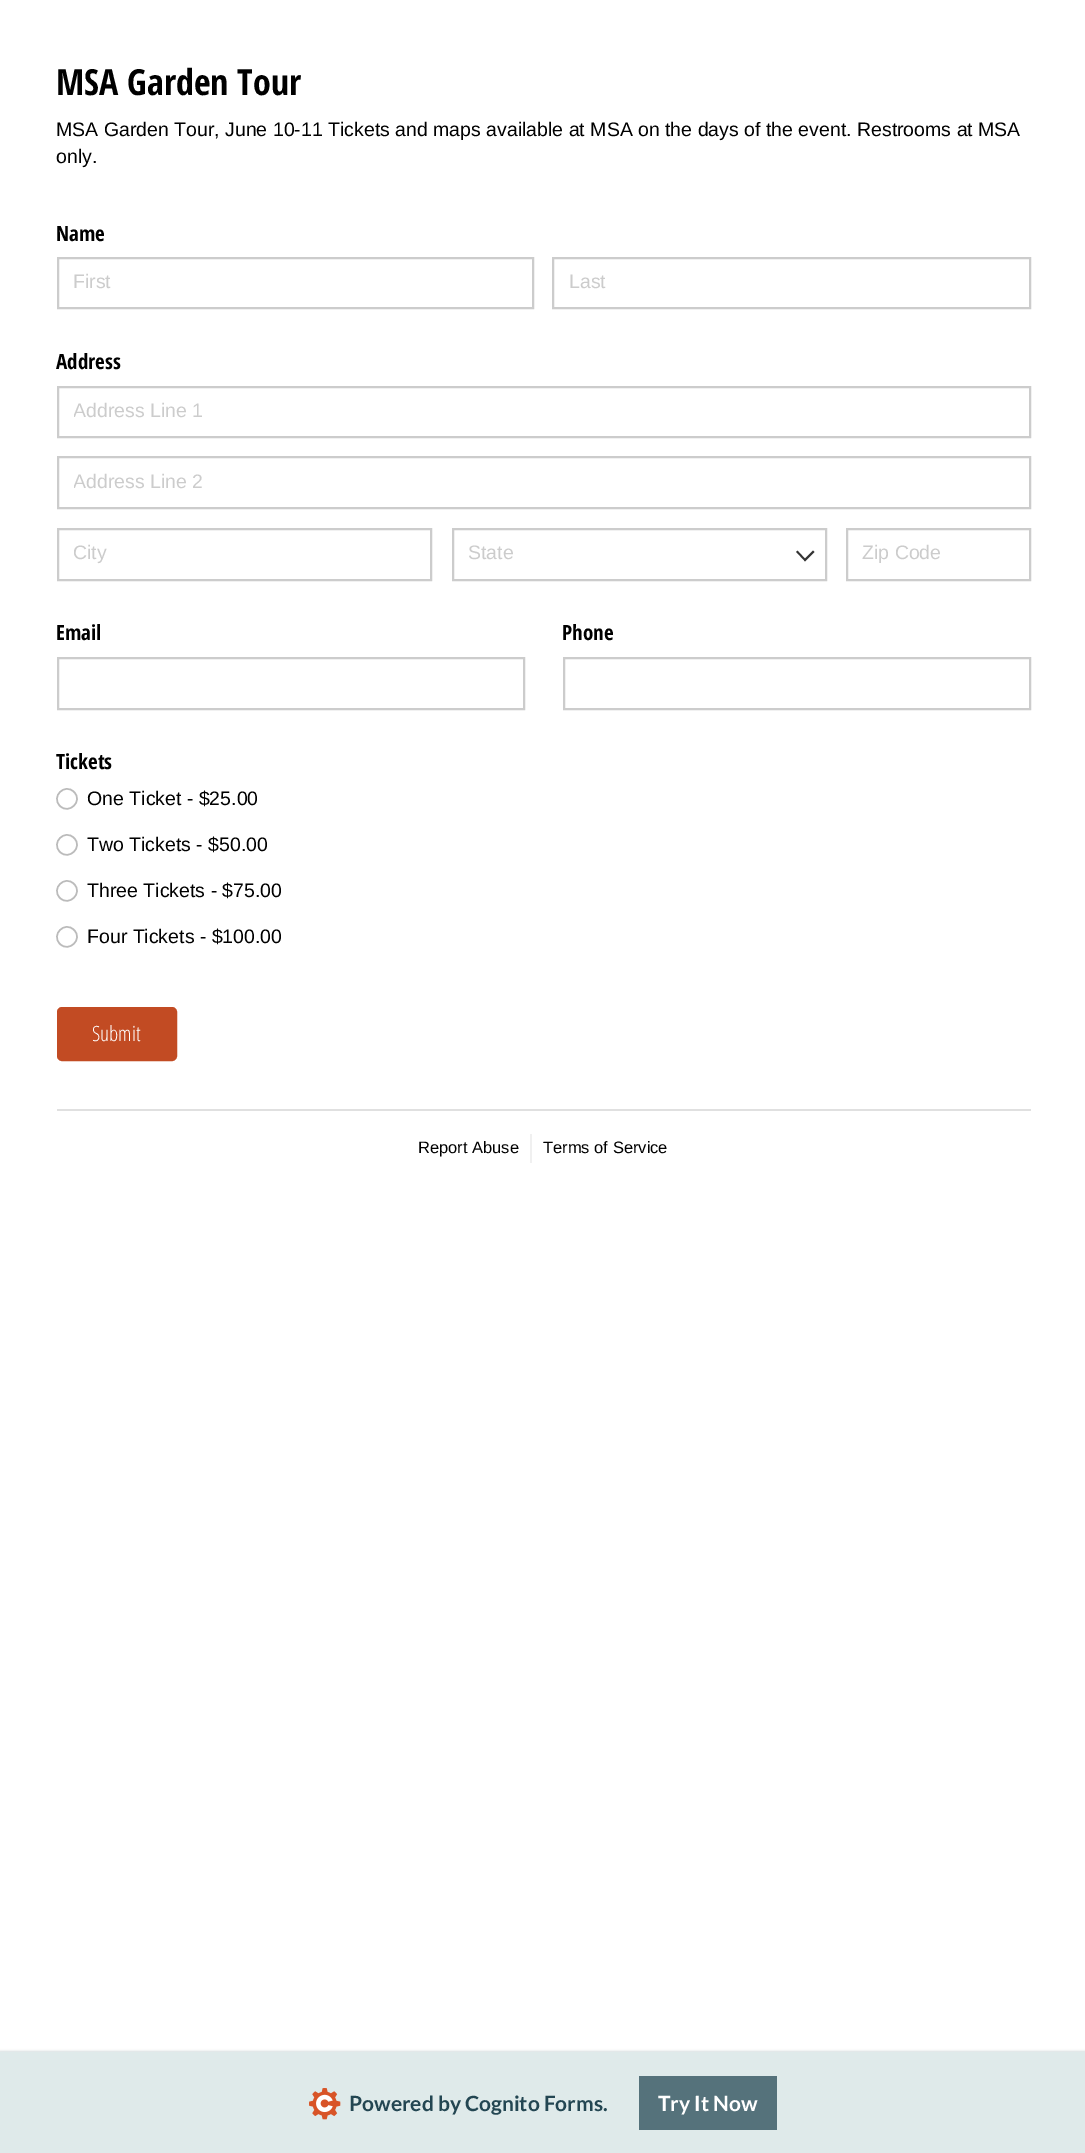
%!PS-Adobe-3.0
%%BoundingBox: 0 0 1085 2153
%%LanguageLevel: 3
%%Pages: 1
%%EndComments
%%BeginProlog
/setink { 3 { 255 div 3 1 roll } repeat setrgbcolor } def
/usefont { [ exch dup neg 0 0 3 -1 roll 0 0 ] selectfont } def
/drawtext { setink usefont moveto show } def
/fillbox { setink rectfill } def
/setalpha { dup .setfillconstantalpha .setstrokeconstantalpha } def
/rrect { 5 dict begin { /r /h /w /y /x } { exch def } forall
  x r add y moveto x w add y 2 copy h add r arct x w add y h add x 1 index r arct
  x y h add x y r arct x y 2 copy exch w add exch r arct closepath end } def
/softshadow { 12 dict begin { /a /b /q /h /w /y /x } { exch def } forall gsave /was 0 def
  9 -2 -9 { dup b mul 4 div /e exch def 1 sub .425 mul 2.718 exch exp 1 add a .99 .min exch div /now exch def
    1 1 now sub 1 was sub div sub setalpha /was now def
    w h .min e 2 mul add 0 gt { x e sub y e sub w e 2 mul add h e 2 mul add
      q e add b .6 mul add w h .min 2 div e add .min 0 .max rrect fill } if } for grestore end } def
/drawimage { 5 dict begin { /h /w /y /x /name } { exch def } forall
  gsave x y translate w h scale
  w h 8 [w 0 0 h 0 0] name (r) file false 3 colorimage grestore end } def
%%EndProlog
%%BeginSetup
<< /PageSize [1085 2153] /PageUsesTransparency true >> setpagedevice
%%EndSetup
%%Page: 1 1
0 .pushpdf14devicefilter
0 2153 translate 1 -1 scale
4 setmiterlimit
0 0 1085 2153 255 255 255 fillbox
(MSA Garden Tour) 56 95 /OpenSansCondensed-Bold 36 0 0 0 drawtext
(MSA Garden Tour, June 10-11 Tickets and maps available at MSA on the days of the event. Restrooms at MSA) 56 136 /LiberationSans-Regular 19.5 0 0 0 drawtext
(only.) 56 163 /LiberationSans-Regular 19.5 0 0 0 drawtext
(Name) 56 241 /OpenSansCondensed-Bold 21 0 0 0 drawtext
204 204 204 setink
2 setlinewidth
58 258 475 50 rectstroke
(First) 73 288 /LiberationSans-Regular 19.5 204 204 204 drawtext
553 258 477 50 rectstroke
(Last) 569 288 /LiberationSans-Regular 19.5 204 204 204 drawtext
(Address) 56 369 /OpenSansCondensed-Bold 21 0 0 0 drawtext
204 204 204 setink
58 387 972 50 rectstroke
gsave
74 399 940 23 rectclip
(Address Line 1) 73 417 /LiberationSans-Regular 19.5 204 204 204 drawtext
grestore
58 457 972 51 rectstroke
gsave
74 470 940 22 rectclip
(Address Line 2) 73 488 /LiberationSans-Regular 19.5 204 204 204 drawtext
grestore
58 529 373 51 rectstroke
gsave
74 542 342 22 rectclip
(City) 73 559 /LiberationSans-Regular 19.5 204 204 204 drawtext
grestore
453 529 373 51 rectstroke
(State) 468 559 /LiberationSans-Regular 19.5 204 204 204 drawtext
51 51 51 setink
1.8 setlinewidth
2 setlinecap
797.5 552 moveto 805 560 lineto 813 552 lineto stroke
204 204 204 setink
2 setlinewidth
0 setlinecap
847 529 183 51 rectstroke
(Zip Code) 862 559 /LiberationSans-Regular 19.5 204 204 204 drawtext
(Email) 56 640 /OpenSansCondensed-Bold 21 0 0 0 drawtext
204 204 204 setink
58 658 466 51 rectstroke
(Phone) 562 640 /OpenSansCondensed-Bold 21 0 0 0 drawtext
204 204 204 setink
564 658 466 51 rectstroke
(Tickets) 56 769 /OpenSansCondensed-Bold 21 0 0 0 drawtext
187 187 187 setink
1.5 setlinewidth
74 792 moveto 83.5 801 69 815 60 806 curveto 50.5 796.5 65 782.5 74 792 curveto closepath stroke
(One Ticket - $25.00) 87 805 /LiberationSans-Regular 19.5 0 0 0 drawtext
187 187 187 setink
74 838 moveto 83.5 847 69 861 60 852 curveto 50.5 842.5 65 828.5 74 838 curveto closepath stroke
(Two Tickets - $50.00) 87 851 /LiberationSans-Regular 19.5 0 0 0 drawtext
187 187 187 setink
74 884 moveto 83.5 893 69 907 60 898 curveto 50.5 888.5 65 874.5 74 884 curveto closepath stroke
(Three Tickets - $75.00) 87 897 /LiberationSans-Regular 19.5 0 0 0 drawtext
187 187 187 setink
74 930 moveto 83.5 939 69 953 60 944 curveto 50.5 934.5 65 920.5 74 930 curveto closepath stroke
(Four Tickets - $100.00) 87 943 /LiberationSans-Regular 19.5 0 0 0 drawtext
194 75 35 setink
58 1008 118 52 4 rrect gsave fill grestore
2 setlinewidth
stroke
(Submit) 92 1041 /OpenSansCondensed-Light 21 255 255 255 drawtext
57 1109 974 2 224 224 224 fillbox
(Report Abuse) 418 1153 /LiberationSans-Regular 16.5 0 0 0 drawtext
530 1134 2 29 240 240 240 fillbox
(Terms of Service) 543 1153 /LiberationSans-Regular 16.5 0 0 0 drawtext
85 114 123 setink
0 2052 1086 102 0 1.5 0.4 softshadow
0 2052 1085 101 223 234 234 fillbox
(assets/img1.rgb) 309 2088 32 32 drawimage
(Powered by Cognito Forms.) 349 2111 /Lato-Bold 21 35 70 82 drawtext
639 2076 138 54 85 114 123 fillbox
(Try It Now) 658 2111 /Lato-Bold 21 255 255 255 drawtext
.poppdf14devicefilter showpage
%%EOF
